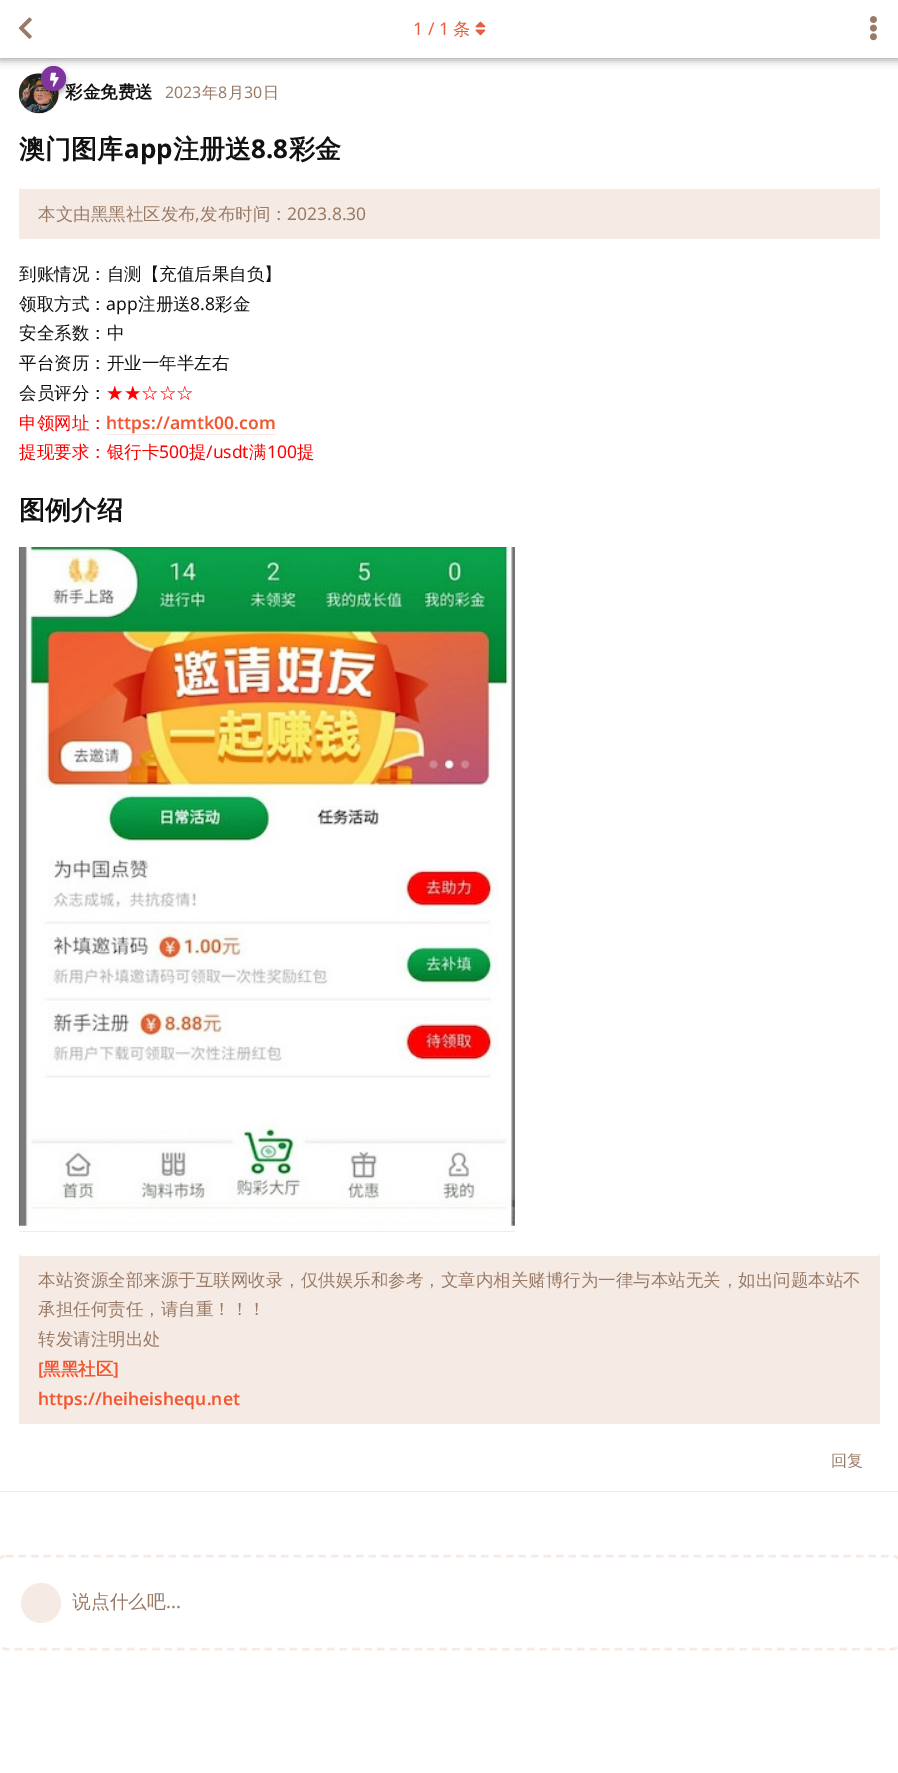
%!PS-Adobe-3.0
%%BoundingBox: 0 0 898 1773
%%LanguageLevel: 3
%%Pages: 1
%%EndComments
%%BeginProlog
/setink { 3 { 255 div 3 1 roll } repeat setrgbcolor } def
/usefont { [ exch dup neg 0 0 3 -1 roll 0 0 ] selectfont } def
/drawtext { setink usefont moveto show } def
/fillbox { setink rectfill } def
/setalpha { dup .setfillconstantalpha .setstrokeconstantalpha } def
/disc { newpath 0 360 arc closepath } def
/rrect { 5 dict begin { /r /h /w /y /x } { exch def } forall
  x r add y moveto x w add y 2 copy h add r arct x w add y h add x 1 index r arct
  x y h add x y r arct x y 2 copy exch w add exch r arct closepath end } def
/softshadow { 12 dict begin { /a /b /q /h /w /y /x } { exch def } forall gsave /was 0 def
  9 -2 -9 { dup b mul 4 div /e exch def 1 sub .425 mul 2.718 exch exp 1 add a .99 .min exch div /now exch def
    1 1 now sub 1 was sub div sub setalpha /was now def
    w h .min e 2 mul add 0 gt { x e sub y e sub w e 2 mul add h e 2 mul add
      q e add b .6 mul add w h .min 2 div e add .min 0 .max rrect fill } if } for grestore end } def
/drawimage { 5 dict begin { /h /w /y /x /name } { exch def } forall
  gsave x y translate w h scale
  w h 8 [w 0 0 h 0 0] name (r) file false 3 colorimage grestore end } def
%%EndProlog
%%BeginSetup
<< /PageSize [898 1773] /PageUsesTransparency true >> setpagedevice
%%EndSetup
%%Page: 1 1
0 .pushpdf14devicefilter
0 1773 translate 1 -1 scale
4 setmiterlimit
0 0 898 1773 255 255 255 fillbox
246 235 228 setink
39 94 20 disc fill
(assets/img5.rgb) 18 73 41 41 drawimage
0 0 0 setink
41 69 25 25 12.5 2.5 0.35 softshadow
(彩金免费送) 65 98 /WenQuanYiZenHei-Bold 17.5 17 17 17 drawtext
128 52 158 setink
53.5 78.5 12.5 disc fill
(assets/img4.rgb) 50 72 9 15 drawimage
0 0 0 setink
0 3 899 57 0 4 0.35 softshadow
0 0 898 58 255 255 255 fillbox
(assets/img1.rgb) 18 17 14 22 drawimage
(1 / 1) 413 35 /NotoSans-Regular 17.5 229 95 62 drawtext
(条) 453 35 /WenQuanYiZenHei-Medium 17.5 229 95 62 drawtext
(assets/img2.rgb) 475 21 11 15 drawimage
(assets/img3.rgb) 869 16 8 25 drawimage
0 1491 898 1 246 235 228 fillbox
(2023) 165 98 /NotoSans-Regular 16 153 122 102 drawtext
(年) 202 98 /WenQuanYiZenHei-Medium 16 153 122 102 drawtext
(8) 218 98 /NotoSans-Regular 16 153 122 102 drawtext
(月) 228 98 /WenQuanYiZenHei-Medium 16 153 122 102 drawtext
(30) 244 98 /NotoSans-Regular 16 153 122 102 drawtext
(日) 263 98 /WenQuanYiZenHei-Medium 16 153 122 102 drawtext
(澳门图库) 19 158 /WenQuanYiZenHei-Bold 26 17 17 17 drawtext
(app) 124 158 /NotoSans-Bold 26 17 17 17 drawtext
(注册送) 173 158 /WenQuanYiZenHei-Bold 26 17 17 17 drawtext
(8.8) 251 158 /NotoSans-Bold 26 17 17 17 drawtext
(彩金) 289 158 /WenQuanYiZenHei-Bold 26 17 17 17 drawtext
246 235 228 setink
19 186 861 55 5 rrect fill
21 186 857 3 255 255 255 fillbox
21 239 857 2 255 255 255 fillbox
(本文由黑黑社区发布) 38 220 /WenQuanYiZenHei-Medium 17.5 153 122 102 drawtext
(,) 195 220 /NotoSans-Regular 17.5 153 122 102 drawtext
(发布时间：) 200 220 /WenQuanYiZenHei-Medium 17.5 153 122 102 drawtext
(2023.8.30) 287 220 /NotoSans-Regular 17.5 153 122 102 drawtext
(到账情况：自测【充值后果自负】) 19 280 /WenQuanYiZenHei-Medium 17.5 17 17 17 drawtext
(领取方式：) 19 310 /WenQuanYiZenHei-Medium 17.5 17 17 17 drawtext
(app) 106 310 /NotoSans-Regular 17.5 17 17 17 drawtext
(注册送) 138 310 /WenQuanYiZenHei-Medium 17.5 17 17 17 drawtext
(8.8) 190 310 /NotoSans-Regular 17.5 17 17 17 drawtext
(彩金) 215 310 /WenQuanYiZenHei-Medium 17.5 17 17 17 drawtext
(安全系数：中) 19 339 /WenQuanYiZenHei-Medium 17.5 17 17 17 drawtext
(平台资历：开业一年半左右) 19 369 /WenQuanYiZenHei-Medium 17.5 17 17 17 drawtext
(会员评分：) 19 399 /WenQuanYiZenHei-Medium 17.5 17 17 17 drawtext
(★★☆☆☆) 106 399 /WenQuanYiZenHei-Medium 17.5 255 0 0 drawtext
(申领网址：) 19 429 /WenQuanYiZenHei-Medium 17.5 255 0 0 drawtext
(https://amtk00.com) 106 429 /NotoSans-SemiBold 17.5 240 88 51 drawtext
106 434 170 1 246 235 228 fillbox
(提现要求：银行卡) 19 458 /WenQuanYiZenHei-Medium 17.5 255 0 0 drawtext
(500) 159 458 /NotoSans-Regular 17.5 255 0 0 drawtext
(提) 189 458 /WenQuanYiZenHei-Medium 17.5 255 0 0 drawtext
(/usdt) 206 458 /NotoSans-Regular 17.5 255 0 0 drawtext
(满) 249 458 /WenQuanYiZenHei-Medium 17.5 255 0 0 drawtext
(100) 267 458 /NotoSans-Regular 17.5 255 0 0 drawtext
(提) 297 458 /WenQuanYiZenHei-Medium 17.5 255 0 0 drawtext
(图例介绍) 19 519 /WenQuanYiZenHei-Bold 26 17 17 17 drawtext
(assets/img6.rgb) 18 547 497 679 drawimage
19 1231 496 1 246 235 228 fillbox
19 1253 861 173 5 rrect fill
21 1253 857 3 255 255 255 fillbox
21 1424 857 2 255 255 255 fillbox
(本站资源全部来源于互联网收录，仅供娱乐和参考，文章内相关赌博行为一律与本站无关，如出问题本站不) 38 1286 /WenQuanYiZenHei-Medium 17.5 153 122 102 drawtext
(承担任何责任，请自重！！！) 38 1315 /WenQuanYiZenHei-Medium 17.5 153 122 102 drawtext
(转发请注明出处) 38 1345 /WenQuanYiZenHei-Medium 17.5 153 122 102 drawtext
([) 38 1375 /NotoSans-SemiBold 17.5 240 88 51 drawtext
(黑黑社区) 43 1375 /WenQuanYiZenHei-Bold 17.5 240 88 51 drawtext
(]) 113 1375 /NotoSans-SemiBold 17.5 240 88 51 drawtext
(https://heiheishequ.net) 38 1405 /NotoSans-SemiBold 17.5 240 88 51 drawtext
(回复) 831 1466 /WenQuanYiZenHei-Medium 16 153 122 102 drawtext
246 235 228 setink
2.5 setlinewidth
[7.5 5] 0 setdash
6 1556 moveto 892.5 1556 lineto 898.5 1556 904 1561.5 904 1567.5 curveto 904 1637.5 lineto 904 1643.5 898.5 1649 892.5 1649 curveto 6 1649 lineto 0 1649 -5 1643.5 -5 1637.5 curveto -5 1567.5 lineto -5 1561.5 0 1556 6 1556 curveto closepath stroke
41 1603 20 disc fill
(说点什么吧) 72 1608 /WenQuanYiZenHei-Medium 18.75 153 122 102 drawtext
(...) 166 1608 /NotoSans-Regular 18.75 153 122 102 drawtext
.poppdf14devicefilter showpage
%%EOF
